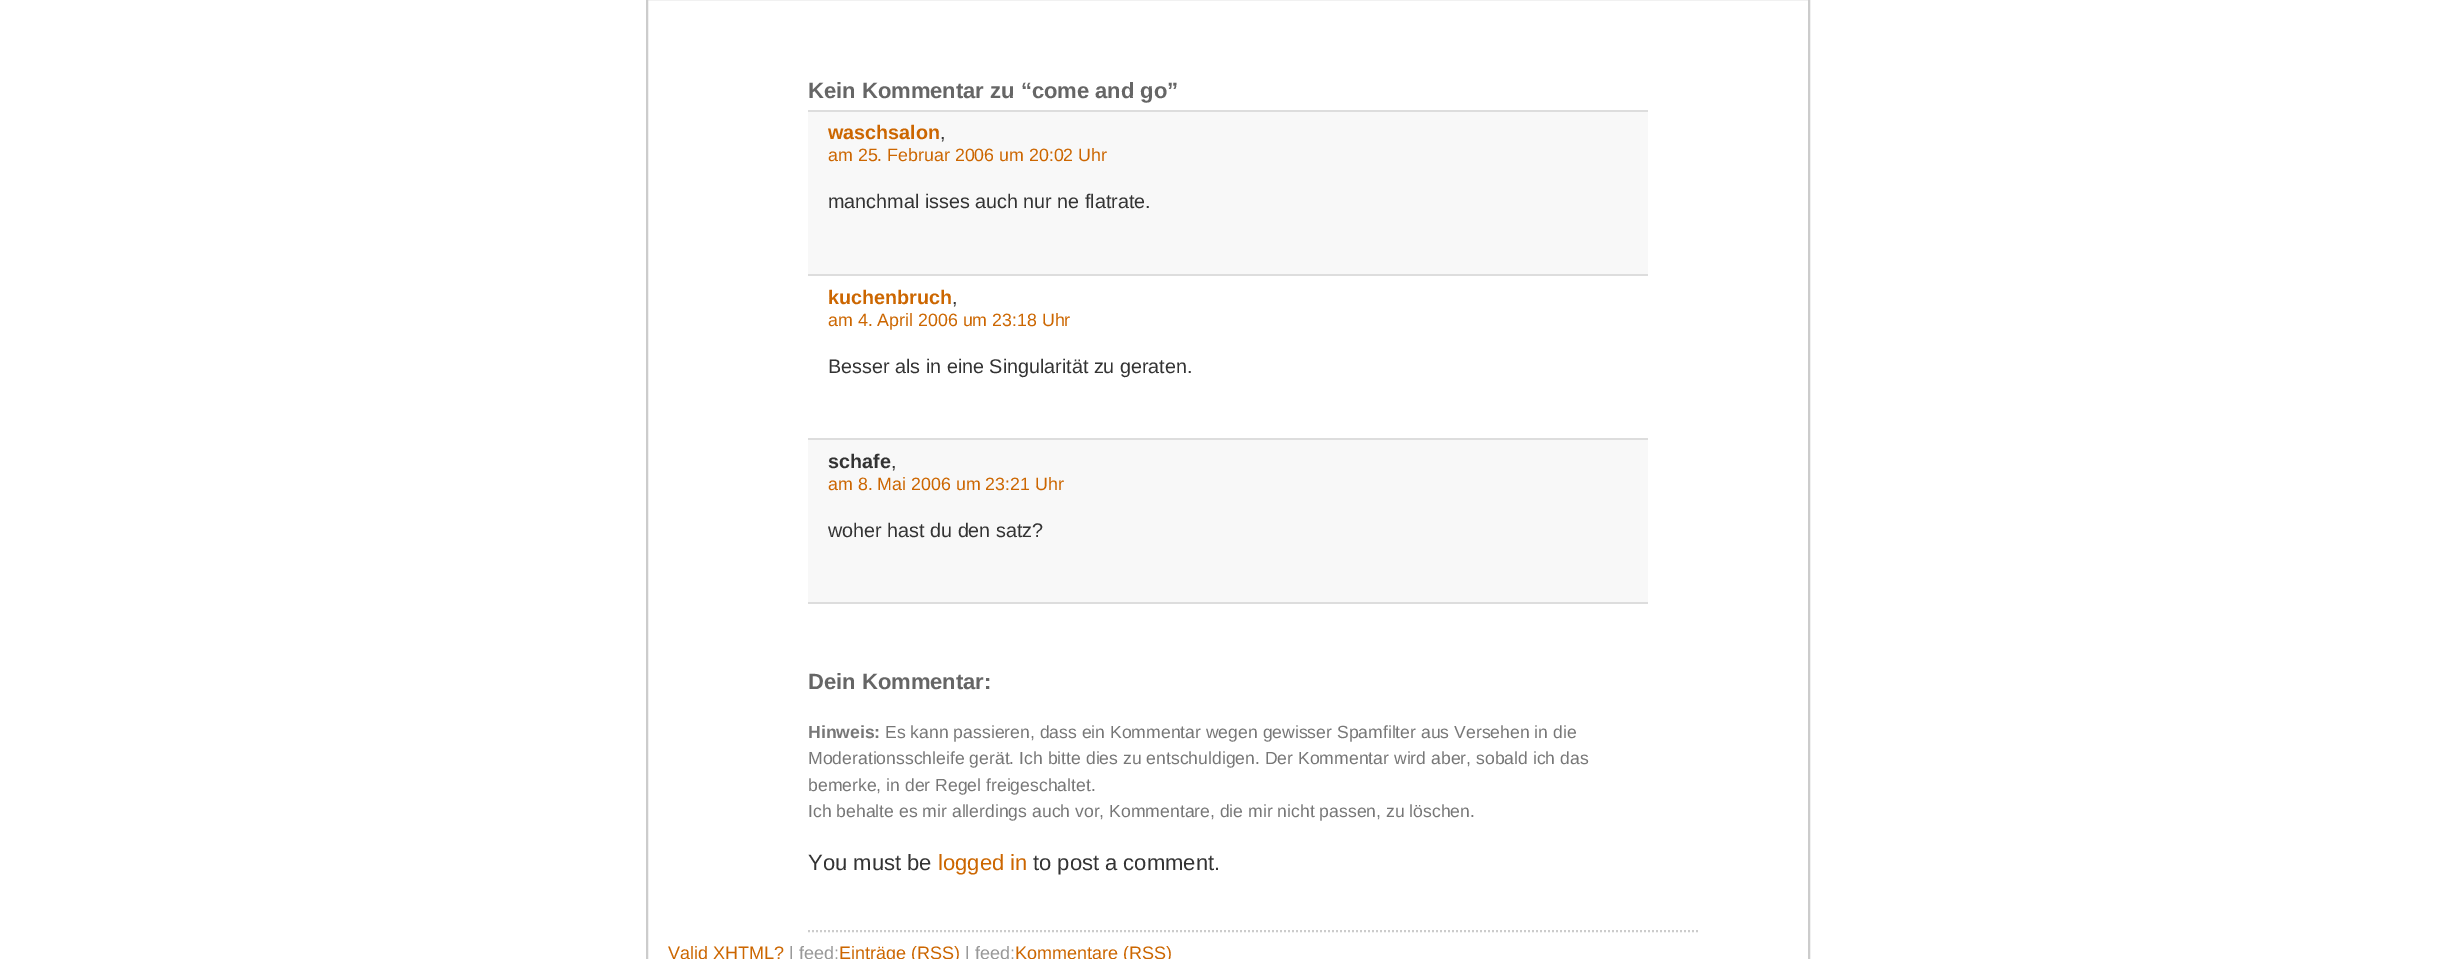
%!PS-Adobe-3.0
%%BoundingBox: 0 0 2455 959
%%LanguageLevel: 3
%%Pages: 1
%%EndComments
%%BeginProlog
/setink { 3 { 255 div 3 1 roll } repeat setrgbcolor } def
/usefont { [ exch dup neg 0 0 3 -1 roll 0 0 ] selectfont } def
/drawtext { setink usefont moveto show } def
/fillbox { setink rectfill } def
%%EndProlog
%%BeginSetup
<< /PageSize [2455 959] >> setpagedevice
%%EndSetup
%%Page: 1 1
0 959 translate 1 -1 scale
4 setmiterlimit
0 0 2455 959 255 255 255 fillbox
204 204 204 setink
2 setlinewidth
647 -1 1162 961 rectstroke
[2 2] 0 setdash
808 931 moveto 1698 931 lineto stroke
(Kein Kommentar zu “come and go”) 808 98 /LiberationSans-Bold 22 102 102 102 drawtext
808 112 840 162 248 248 248 fillbox
808 110 840 2 221 221 221 fillbox
808 274 840 2 221 221 221 fillbox
(waschsalon) 828 139 /LiberationSans-Bold 19.75 204 102 0 drawtext
(,) 940 139 /LiberationSans-Regular 19.75 51 51 51 drawtext
(am 25. Februar 2006 um 20:02 Uhr) 828 161 /LiberationSans-Regular 17.8 204 102 0 drawtext
(manchmal isses auch nur ne flatrate.) 828 208 /LiberationSans-Regular 19.75 51 51 51 drawtext
(kuchenbruch) 828 304 /LiberationSans-Bold 19.75 204 102 0 drawtext
(,) 952 304 /LiberationSans-Regular 19.75 51 51 51 drawtext
(am 4. April 2006 um 23:18 Uhr) 828 326 /LiberationSans-Regular 17.8 204 102 0 drawtext
(Besser als in eine Singularität zu geraten.) 828 373 /LiberationSans-Regular 19.75 51 51 51 drawtext
808 440 840 162 248 248 248 fillbox
808 438 840 2 221 221 221 fillbox
808 602 840 2 221 221 221 fillbox
(schafe) 828 468 /LiberationSans-Bold 19.75 51 51 51 drawtext
(,) 891 468 /LiberationSans-Regular 19.75 51 51 51 drawtext
(am 8. Mai 2006 um 23:21 Uhr) 828 490 /LiberationSans-Regular 17.8 204 102 0 drawtext
(woher hast du den satz?) 828 537 /LiberationSans-Regular 19.75 51 51 51 drawtext
(Dein Kommentar:) 808 689 /LiberationSans-Bold 22 102 102 102 drawtext
(Hinweis:) 808 738 /LiberationSans-Bold 17.6 119 119 119 drawtext
(Es kann passieren, dass ein Kommentar wegen gewisser Spamfilter aus Versehen in die) 885 738 /LiberationSans-Regular 17.6 119 119 119 drawtext
(Moderationsschleife gerät. Ich bitte dies zu entschuldigen. Der Kommentar wird aber, sobald ich das) 808 764 /LiberationSans-Regular 17.6 119 119 119 drawtext
(bemerke, in der Regel freigeschaltet.) 808 791 /LiberationSans-Regular 17.6 119 119 119 drawtext
(Ich behalte es mir allerdings auch vor, Kommentare, die mir nicht passen, zu löschen.) 808 817 /LiberationSans-Regular 17.6 119 119 119 drawtext
(You must be) 808 870 /LiberationSans-Regular 22 51 51 51 drawtext
(logged in) 938 870 /LiberationSans-Regular 22 204 102 0 drawtext
(to post a comment.) 1033 870 /LiberationSans-Regular 22 51 51 51 drawtext
(Valid XHTML?) 668 959 /LiberationSans-Regular 18 204 102 0 drawtext
(| feed:) 789 959 /LiberationSans-Regular 18 153 153 153 drawtext
(Einträge \(RSS\)) 839 959 /LiberationSans-Regular 18 204 102 0 drawtext
(| feed:) 965 959 /LiberationSans-Regular 18 153 153 153 drawtext
(Kommentare \(RSS\)) 1015 959 /LiberationSans-Regular 18 204 102 0 drawtext
showpage
%%EOF
